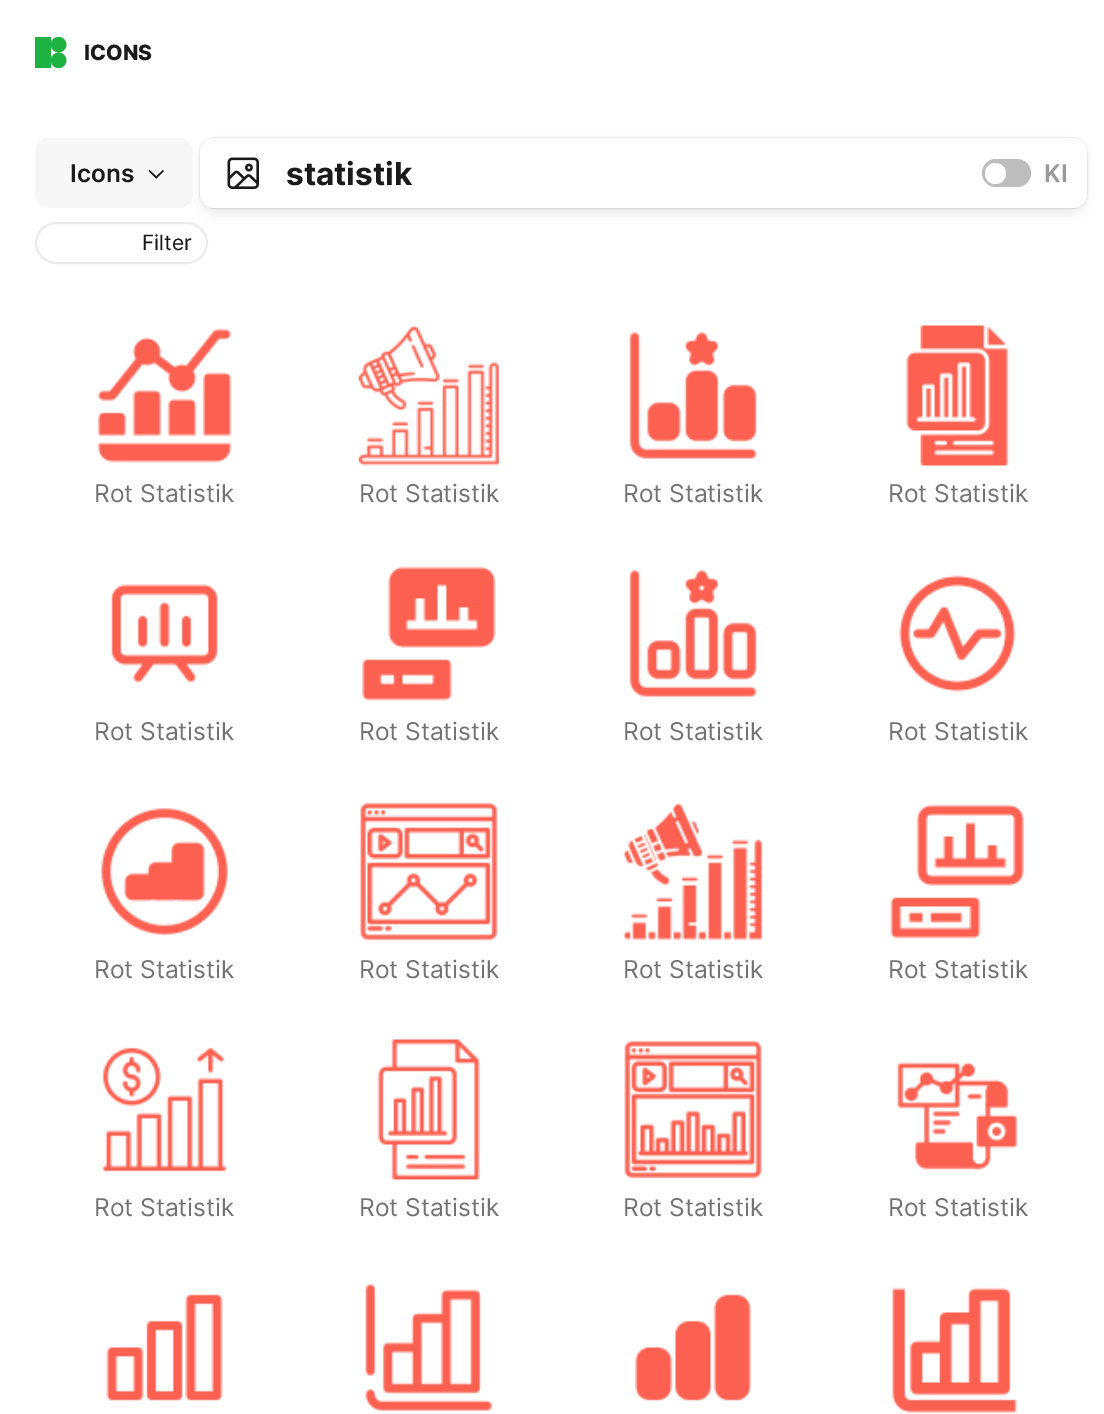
%!PS-Adobe-3.0
%%BoundingBox: 0 0 1104 1414
%%LanguageLevel: 3
%%Pages: 1
%%EndComments
%%BeginProlog
/setink { 3 { 255 div 3 1 roll } repeat setrgbcolor } def
/usefont { [ exch dup neg 0 0 3 -1 roll 0 0 ] selectfont } def
/drawtext { setink usefont moveto show } def
/fillbox { setink rectfill } def
/setalpha { dup .setfillconstantalpha .setstrokeconstantalpha } def
/disc { newpath 0 360 arc closepath } def
/rrect { 5 dict begin { /r /h /w /y /x } { exch def } forall
  x r add y moveto x w add y 2 copy h add r arct x w add y h add x 1 index r arct
  x y h add x y r arct x y 2 copy exch w add exch r arct closepath end } def
/softshadow { 12 dict begin { /a /b /q /h /w /y /x } { exch def } forall gsave /was 0 def
  9 -2 -9 { dup b mul 4 div /e exch def 1 sub .425 mul 2.718 exch exp 1 add a .99 .min exch div /now exch def
    1 1 now sub 1 was sub div sub setalpha /was now def
    w h .min e 2 mul add 0 gt { x e sub y e sub w e 2 mul add h e 2 mul add
      q e add b .6 mul add w h .min 2 div e add .min 0 .max rrect fill } if } for grestore end } def
/drawimage { 5 dict begin { /h /w /y /x /name } { exch def } forall
  gsave x y translate w h scale
  w h 8 [w 0 0 h 0 0] name (r) file false 3 colorimage grestore end } def
%%EndProlog
%%BeginSetup
<< /PageSize [1104 1414] /PageUsesTransparency true >> setpagedevice
%%EndSetup
%%Page: 1 1
0 .pushpdf14devicefilter
0 1414 translate 1 -1 scale
4 setmiterlimit
0 0 1104 1414 255 255 255 fillbox
(assets/img1.rgb) 35 37 32 31 drawimage
(ICONS) 84 60 /Inter-ExtraBold 21 26 26 26 drawtext
235 235 235 setink
2 setlinewidth
36 223 171 40 20 rrect stroke
96 96 96 setink
203 149 880 63 11 7 0.15 softshadow
247 247 247 setink
35 138 158 70 14 rrect fill
(Icons) 70 182 /Inter-SemiBold 24.5 26 26 26 drawtext
149.5 170 moveto 157 177 lineto 156 178.5 lineto 148.5 171 lineto closepath fill
155.5 177 moveto 163 170 lineto 164 171 lineto 156.5 178.5 lineto closepath fill
96 96 96 setink
200 138 887 70 14 1 0.31 softshadow
255 255 255 setink
200 138 887 70 14 rrect fill
(assets/img2.rgb) 227 157 32 32 drawimage
(statistik) 286 185 /Inter-Bold 31.5 26 26 26 drawtext
189 189 189 setink
982 159 49 28 14 rrect fill
255 255 255 setink
995.5 173.5 10.5 disc fill
(KI) 1044 182 /Inter-SemiBold 24.5 153 153 153 drawtext
(Filter) 142 250 /Inter-Regular 21 26 26 26 drawtext
(assets/img3.rgb) 97 328 135 135 drawimage
(Rot Statistik) 94 502 /Inter-Regular 24.5 115 115 115 drawtext
(assets/img4.rgb) 358 325 141 141 drawimage
(Rot Statistik) 359 502 /Inter-Regular 24.5 115 115 115 drawtext
(assets/img5.rgb) 629 332 128 127 drawimage
(Rot Statistik) 623 502 /Inter-Regular 24.5 115 115 115 drawtext
(assets/img6.rgb) 906 325 103 141 drawimage
(Rot Statistik) 888 502 /Inter-Regular 24.5 115 115 115 drawtext
(assets/img7.rgb) 111 584 107 99 drawimage
(Rot Statistik) 94 740 /Inter-Regular 24.5 115 115 115 drawtext
(assets/img8.rgb) 361 566 135 135 drawimage
(Rot Statistik) 359 740 /Inter-Regular 24.5 115 115 115 drawtext
(assets/img9.rgb) 629 570 128 127 drawimage
(Rot Statistik) 623 740 /Inter-Regular 24.5 115 115 115 drawtext
(assets/img10.rgb) 899 575 117 117 drawimage
(Rot Statistik) 888 740 /Inter-Regular 24.5 115 115 115 drawtext
(assets/img11.rgb) 101 808 127 127 drawimage
(Rot Statistik) 94 978 /Inter-Regular 24.5 115 115 115 drawtext
(assets/img12.rgb) 360 802 138 139 drawimage
(Rot Statistik) 359 978 /Inter-Regular 24.5 115 115 115 drawtext
(assets/img13.rgb) 623 803 140 138 drawimage
(Rot Statistik) 623 978 /Inter-Regular 24.5 115 115 115 drawtext
(assets/img14.rgb) 890 804 135 135 drawimage
(Rot Statistik) 888 978 /Inter-Regular 24.5 115 115 115 drawtext
(assets/img15.rgb) 102 1047 125 125 drawimage
(Rot Statistik) 94 1216 /Inter-Regular 24.5 115 115 115 drawtext
(assets/img16.rgb) 377 1039 103 141 drawimage
(Rot Statistik) 359 1216 /Inter-Regular 24.5 115 115 115 drawtext
(assets/img17.rgb) 624 1040 138 139 drawimage
(Rot Statistik) 623 1216 /Inter-Regular 24.5 115 115 115 drawtext
(assets/img18.rgb) 897 1062 121 108 drawimage
(Rot Statistik) 888 1216 /Inter-Regular 24.5 115 115 115 drawtext
(assets/img19.rgb) 106 1294 117 107 drawimage
(assets/img20.rgb) 365 1284 128 127 drawimage
(assets/img21.rgb) 634 1294 118 107 drawimage
(assets/img22.rgb) 892 1287 126 126 drawimage
.poppdf14devicefilter showpage
%%EOF
